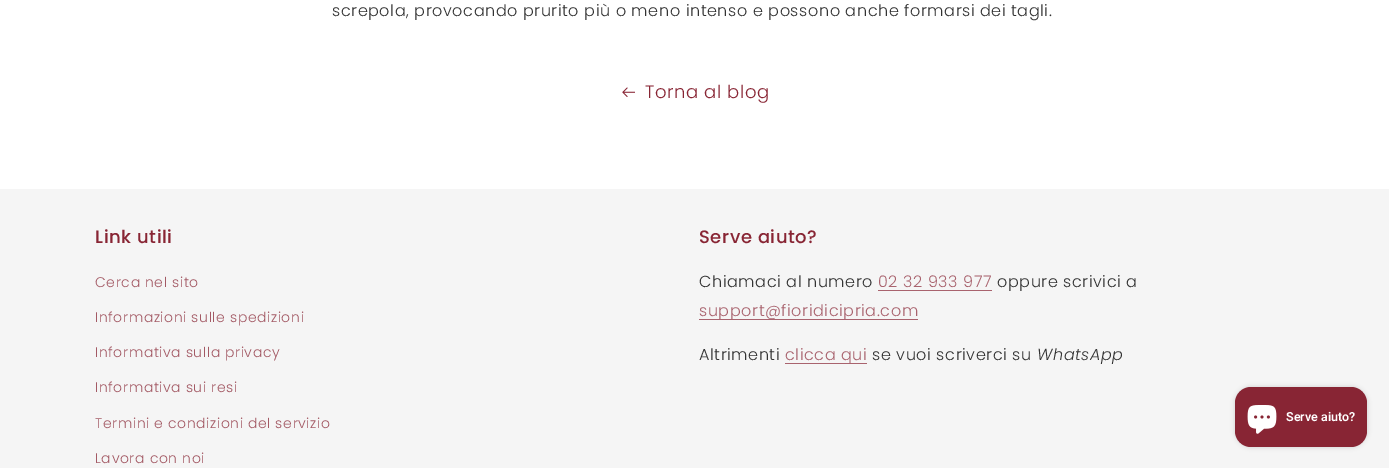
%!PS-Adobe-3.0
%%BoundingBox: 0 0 1389 468
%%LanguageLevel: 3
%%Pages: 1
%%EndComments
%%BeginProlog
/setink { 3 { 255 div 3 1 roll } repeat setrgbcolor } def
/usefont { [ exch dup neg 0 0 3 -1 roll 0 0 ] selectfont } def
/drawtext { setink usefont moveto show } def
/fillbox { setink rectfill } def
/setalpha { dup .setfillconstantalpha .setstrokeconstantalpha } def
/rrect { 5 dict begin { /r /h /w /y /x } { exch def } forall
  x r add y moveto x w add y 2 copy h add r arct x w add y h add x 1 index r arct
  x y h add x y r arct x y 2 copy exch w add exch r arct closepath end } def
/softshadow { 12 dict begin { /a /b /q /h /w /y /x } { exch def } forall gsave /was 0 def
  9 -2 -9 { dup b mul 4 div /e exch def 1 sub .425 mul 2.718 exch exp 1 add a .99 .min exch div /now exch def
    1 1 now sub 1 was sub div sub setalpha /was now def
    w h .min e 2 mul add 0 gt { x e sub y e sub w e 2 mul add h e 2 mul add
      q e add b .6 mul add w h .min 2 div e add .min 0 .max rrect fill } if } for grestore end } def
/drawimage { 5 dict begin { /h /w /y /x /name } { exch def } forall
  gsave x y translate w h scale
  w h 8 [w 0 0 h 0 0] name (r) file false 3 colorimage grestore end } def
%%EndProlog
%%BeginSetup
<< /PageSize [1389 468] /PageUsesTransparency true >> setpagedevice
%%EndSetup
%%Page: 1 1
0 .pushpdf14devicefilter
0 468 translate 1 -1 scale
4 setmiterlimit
0 0 1389 468 255 255 255 fillbox
/Poppins-Light 16 usefont
51 51 51 setink
332 16 moveto 0.6 0 (screpola, provocando prurito più o meno intenso e possono anche formarsi dei tagli.) ashow
(assets/img1.rgb) 622 87 13 10 drawimage
/Poppins-Light 18 usefont
136 37 52 setink
645 98 moveto 0.6 0 (Torna al blog) ashow
0 189 1389 279 245 245 245 fillbox
/Poppins-Medium 18 usefont
136 37 52 setink
95 243 moveto 0.6 0 (Link utili) ashow
/Poppins-Light 14 usefont
163 89 100 setink
95 287 moveto 0.6 0 (Cerca nel sito) ashow
95 322 moveto 0.6 0 (Informazioni sulle spedizioni) ashow
95 357 moveto 0.6 0 (Informativa sulla privacy) ashow
95 392 moveto 0.6 0 (Informativa sui resi) ashow
95 428 moveto 0.6 0 (Termini e condizioni del servizio) ashow
95 463 moveto 0.6 0 (Lavora con noi) ashow
/Poppins-Medium 18 usefont
136 37 52 setink
699 243 moveto 0.6 0 (Serve aiuto?) ashow
/Poppins-Light 16 usefont
51 51 51 setink
699 287 moveto 0.6 0 (Chiamaci al numero) ashow
169 99 110 setink
878 287 moveto 0.6 0 (02 32 933 977) ashow
878 290 114 1 169 99 110 fillbox
51 51 51 setink
997 287 moveto 0.6 0 (oppure scrivici a) ashow
699 319 219 1 169 99 110 fillbox
699 316 moveto 0.6 0 (support@fioridicipria.com) ashow
51 51 51 setink
699 360 moveto 0.6 0 (Altrimenti) ashow
785 363 82 1 169 99 110 fillbox
785 360 moveto 0.6 0 (clicca qui) ashow
51 51 51 setink
872 360 moveto 0.6 0 (se vuoi scriverci su) ashow
/Poppins-LightItalic 16 usefont
1037 360 moveto 0.6 0 (WhatsApp) ashow
0 0 0 setink
1235 387 132 60 16 2.5 0.15 softshadow
136 37 52 setink
1235 387 132 60 16 rrect fill
(assets/img2.rgb) 1247 405 30 29 drawimage
(Serve aiuto?) 1286 421 /Roboto-SemiBold 12.5 255 255 255 drawtext
.poppdf14devicefilter showpage
%%EOF
